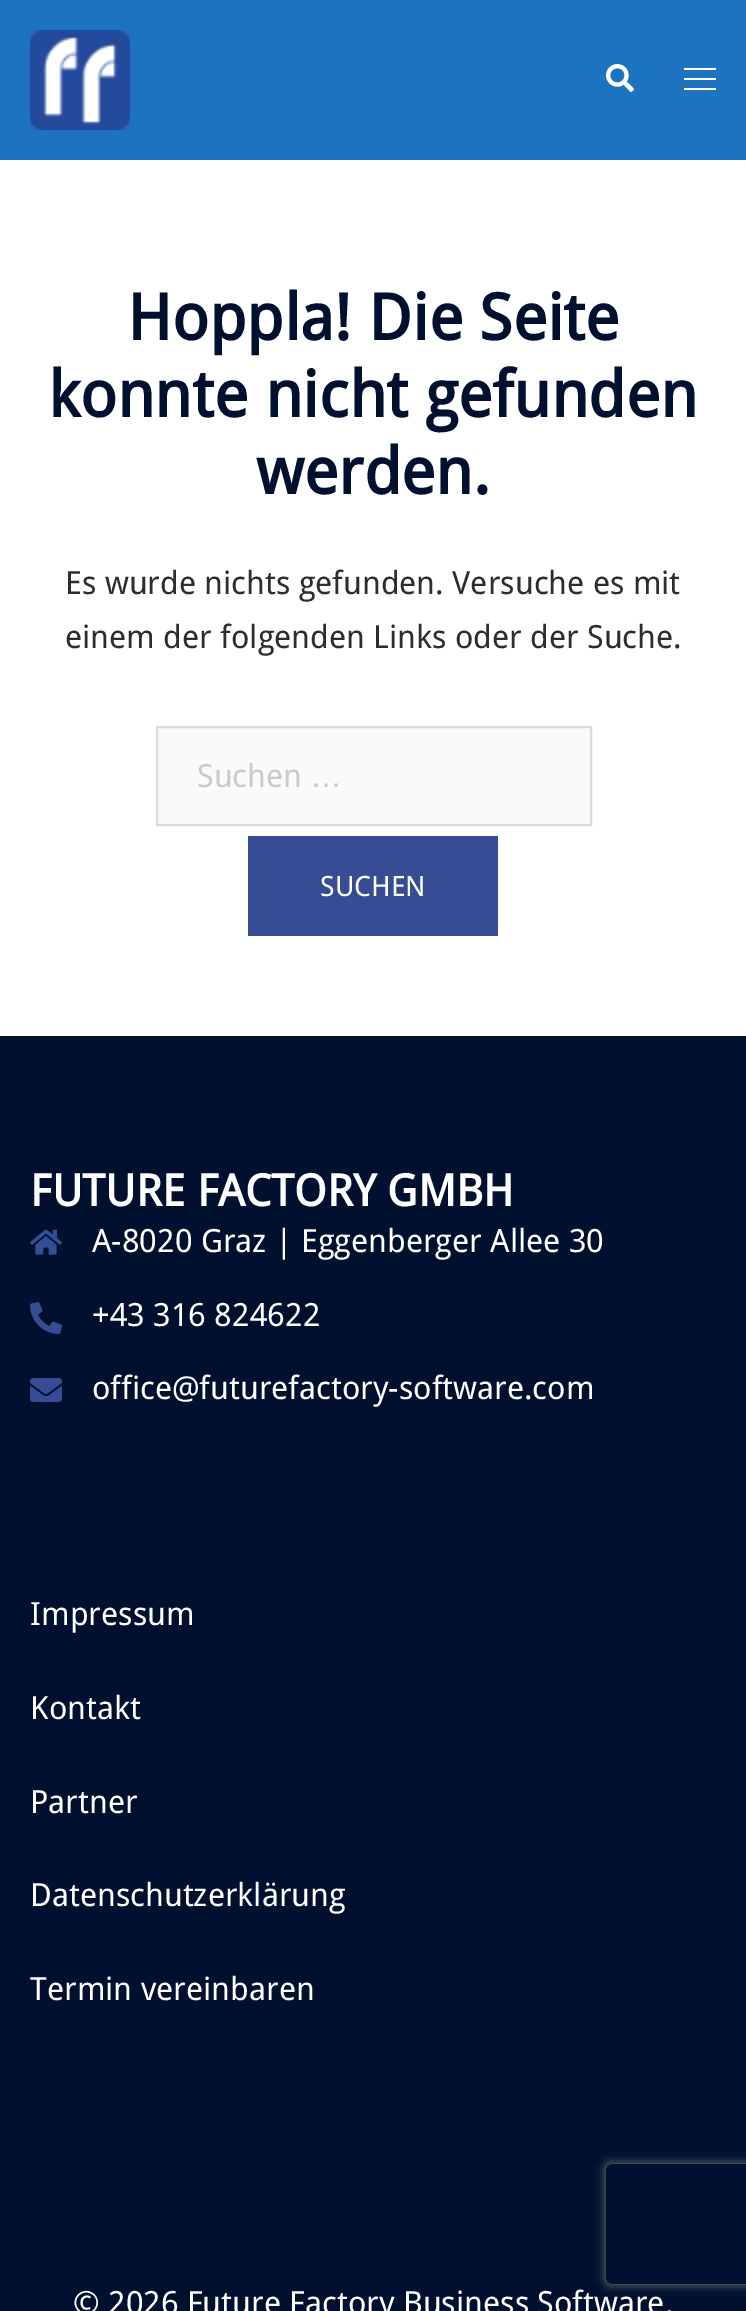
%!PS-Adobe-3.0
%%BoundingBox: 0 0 746 2311
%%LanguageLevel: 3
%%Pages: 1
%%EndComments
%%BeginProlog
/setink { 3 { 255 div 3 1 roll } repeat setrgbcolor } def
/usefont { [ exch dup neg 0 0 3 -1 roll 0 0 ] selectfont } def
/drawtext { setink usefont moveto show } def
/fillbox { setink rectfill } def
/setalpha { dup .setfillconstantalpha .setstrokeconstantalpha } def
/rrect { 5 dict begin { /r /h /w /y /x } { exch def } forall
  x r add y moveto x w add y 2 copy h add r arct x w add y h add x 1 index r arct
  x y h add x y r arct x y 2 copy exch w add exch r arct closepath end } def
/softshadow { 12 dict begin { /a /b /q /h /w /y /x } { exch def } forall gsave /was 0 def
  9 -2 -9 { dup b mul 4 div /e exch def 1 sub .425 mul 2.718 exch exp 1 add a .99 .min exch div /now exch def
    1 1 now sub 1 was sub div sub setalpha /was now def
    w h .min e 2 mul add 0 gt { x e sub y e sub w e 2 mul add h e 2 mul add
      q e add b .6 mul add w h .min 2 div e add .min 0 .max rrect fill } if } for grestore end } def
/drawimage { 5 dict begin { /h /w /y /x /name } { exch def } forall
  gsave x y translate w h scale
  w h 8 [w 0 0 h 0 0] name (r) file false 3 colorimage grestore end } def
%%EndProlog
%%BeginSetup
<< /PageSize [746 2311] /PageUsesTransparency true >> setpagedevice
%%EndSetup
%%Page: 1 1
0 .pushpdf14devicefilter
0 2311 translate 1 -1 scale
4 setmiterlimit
0 0 746 2311 255 255 255 fillbox
0 0 746 160 30 115 190 fillbox
(assets/img1.rgb) 30 30 100 100 drawimage
(assets/img2.rgb) 606 64 28 28 drawimage
684 68 32 2 255 255 255 fillbox
684 78 32 2 255 255 255 fillbox
684 88 32 2 255 255 255 fillbox
(Hoppla! Die Seite) 127 340 /DroidSans-Bold 64 0 16 46 drawtext
(konnte nicht gefunden) 48 417 /DroidSans-Bold 64 0 16 46 drawtext
(werden.) 256 494 /DroidSans-Bold 64 0 16 46 drawtext
(Es wurde nichts gefunden. Versuche es mit) 65 594 /DroidSans-Regular 32 45 45 45 drawtext
(einem der folgenden Links oder der Suche.) 65 648 /DroidSans-Regular 32 45 45 45 drawtext
250 250 250 setink
157 727 moveto 591 727 lineto 591 825 lineto 157 825 lineto closepath gsave fill grestore
219 219 219 setink
2 setlinewidth
stroke
(Suchen) 197 787 /DroidSans-Regular 32 202 202 202 drawtext
(…) 310 787 /LiberationSans-Regular 32 202 202 202 drawtext
248 836 250 100 54 76 149 fillbox
(SUCHEN) 320 896 /DroidSans-Regular 28 255 255 255 drawtext
0 1036 746 1275 0 16 46 fillbox
(FUTURE FACTORY GMBH) 30 1206 /DroidSans-Bold 44 255 255 255 drawtext
(assets/img3.rgb) 30 1229 32 26 drawimage
(A-8020 Graz | Eggenberger Allee 30) 92 1252 /DroidSans-Regular 32 255 255 255 drawtext
(assets/img4.rgb) 30 1302 32 32 drawimage
(+43 316 824622) 92 1326 /DroidSans-Regular 32 255 255 255 drawtext
(assets/img5.rgb) 30 1378 32 24 drawimage
(office@futurefactory-software.com) 92 1399 /DroidSans-Regular 32 255 255 255 drawtext
(Impressum) 30 1625 /DroidSans-Regular 32 255 255 255 drawtext
(Kontakt) 30 1719 /DroidSans-Regular 32 255 255 255 drawtext
(Partner) 30 1813 /DroidSans-Regular 32 255 255 255 drawtext
(Datenschutzerklärung) 30 1906 /DroidSans-Regular 32 255 255 255 drawtext
(Termin vereinbaren) 30 2000 /DroidSans-Regular 32 255 255 255 drawtext
(© 2026 Future Factory Business Software.) 73 2314 /DroidSans-Regular 32 255 255 255 drawtext
gsave
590 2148 moveto 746 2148 lineto 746 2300 lineto 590 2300 lineto closepath 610 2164 moveto 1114 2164 lineto 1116 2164 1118 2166 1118 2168 curveto 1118 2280 lineto 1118 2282 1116 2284 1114 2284 curveto 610 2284 lineto 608 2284 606 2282 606 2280 curveto 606 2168 lineto 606 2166 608 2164 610 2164 curveto closepath eoclip newpath
128 128 128 setink
606 2164 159 120 4 5 1 softshadow
grestore
.poppdf14devicefilter showpage
%%EOF
